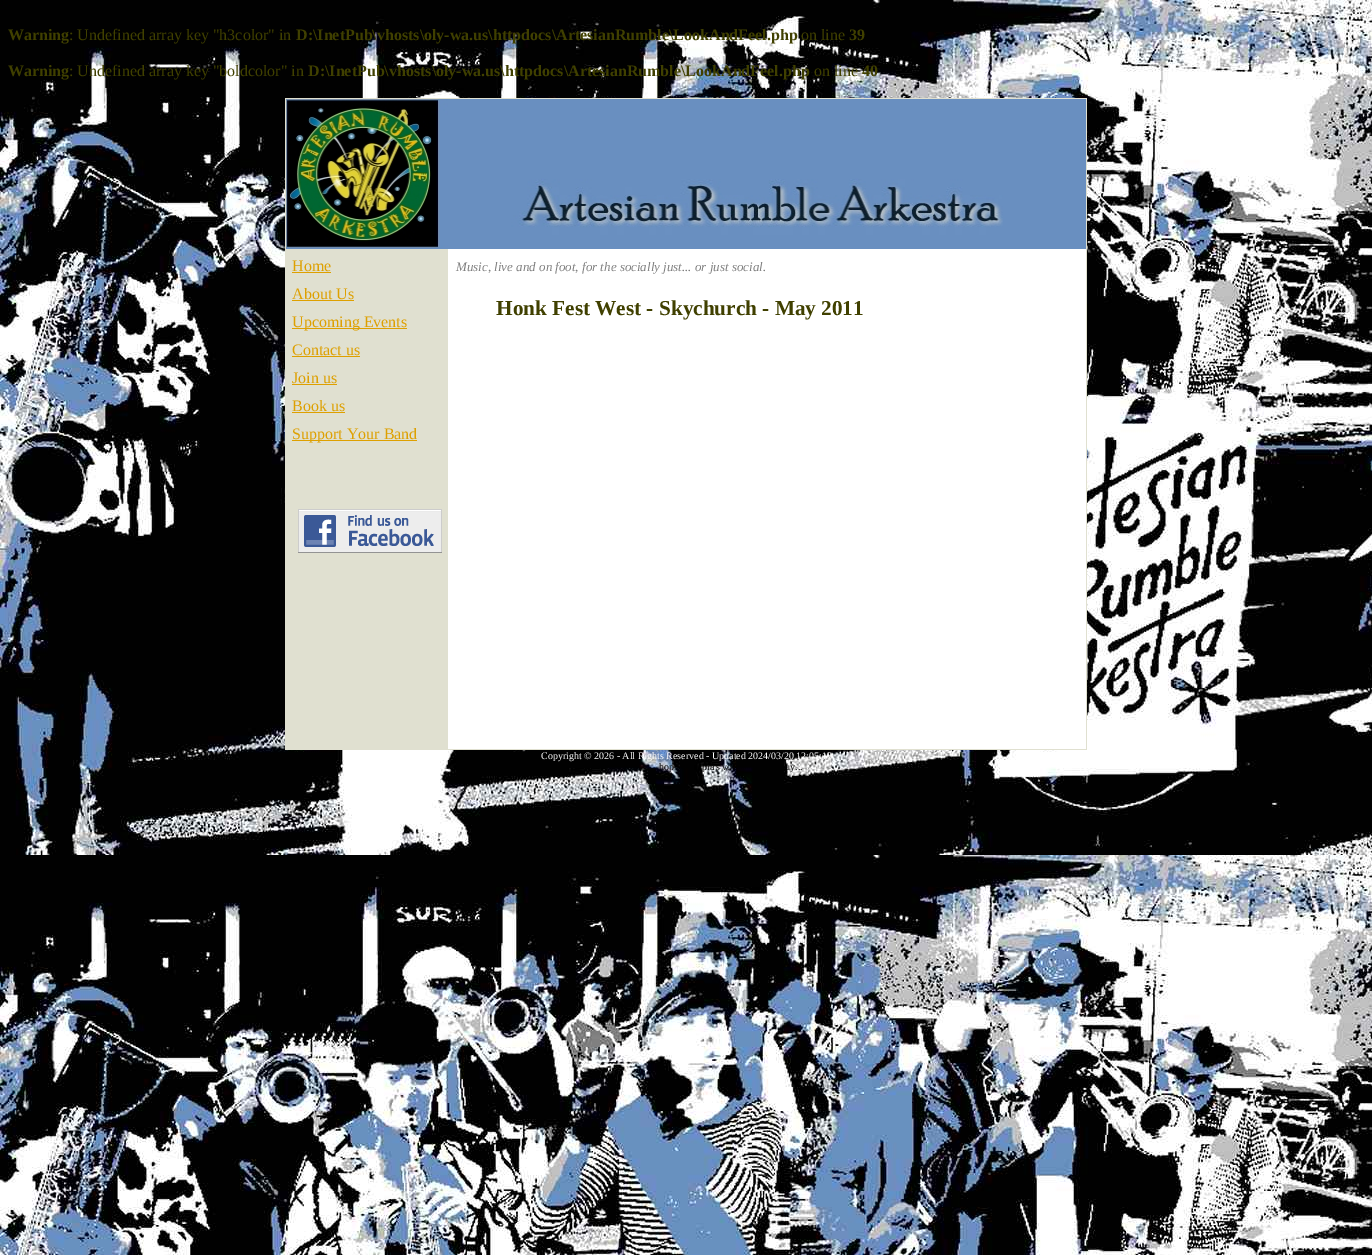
%!PS-Adobe-3.0
%%BoundingBox: 0 0 1372 1255
%%LanguageLevel: 3
%%Pages: 1
%%EndComments
%%BeginProlog
/setink { 3 { 255 div 3 1 roll } repeat setrgbcolor } def
/usefont { [ exch dup neg 0 0 3 -1 roll 0 0 ] selectfont } def
/drawtext { setink usefont moveto show } def
/fillbox { setink rectfill } def
/drawimage { 5 dict begin { /h /w /y /x /name } { exch def } forall
  gsave x y translate w h scale
  w h 8 [w 0 0 h 0 0] name (r) file false 3 colorimage grestore end } def
%%EndProlog
%%BeginSetup
<< /PageSize [1372 1255] >> setpagedevice
%%EndSetup
%%Page: 1 1
0 1255 translate 1 -1 scale
4 setmiterlimit
0 0 1372 1255 255 255 255 fillbox
(assets/img1.rgb) 0 0 1372 1255 drawimage
(Warning) 8 40 /LiberationSerif-Bold 16 64 64 0 drawtext
(: Undefined array key "h3color" in) 69 40 /LiberationSerif-Regular 16 64 64 0 drawtext
(D:\\InetPub\\vhosts\\oly-wa.us\\httpdocs\\ArtesianRumble\\LookAndFeel.php) 296 40 /LiberationSerif-Bold 16 64 64 0 drawtext
(on line) 801 40 /LiberationSerif-Regular 16 64 64 0 drawtext
(39) 849 40 /LiberationSerif-Bold 16 64 64 0 drawtext
(Warning) 8 76 /LiberationSerif-Bold 16 64 64 0 drawtext
(: Undefined array key "boldcolor" in) 69 76 /LiberationSerif-Regular 16 64 64 0 drawtext
(D:\\InetPub\\vhosts\\oly-wa.us\\httpdocs\\ArtesianRumble\\LookAndFeel.php) 308 76 /LiberationSerif-Bold 16 64 64 0 drawtext
(on line) 814 76 /LiberationSerif-Regular 16 64 64 0 drawtext
(40) 862 76 /LiberationSerif-Bold 16 64 64 0 drawtext
285 98 802 652 224 224 208 fillbox
448 249 638 500 255 255 255 fillbox
286 99 800 150 105 143 192 fillbox
(assets/img2.rgb) 286 99 717 149 drawimage
(Home) 292 271 /LiberationSerif-Regular 16 222 160 0 drawtext
292 272 39 1 222 160 0 fillbox
(About Us) 292 299 /LiberationSerif-Regular 16 222 160 0 drawtext
292 300 62 1 222 160 0 fillbox
292 328 115 1 222 160 0 fillbox
(Upcoming Events) 292 327 /LiberationSerif-Regular 16 222 160 0 drawtext
(Contact us) 292 355 /LiberationSerif-Regular 16 222 160 0 drawtext
292 356 68 1 222 160 0 fillbox
(Join us) 292 383 /LiberationSerif-Regular 16 222 160 0 drawtext
292 384 45 1 222 160 0 fillbox
(Book us) 292 411 /LiberationSerif-Regular 16 222 160 0 drawtext
292 412 53 1 222 160 0 fillbox
292 440 125 1 222 160 0 fillbox
(Support Your Band) 292 439 /LiberationSerif-Regular 16 222 160 0 drawtext
(assets/img3.rgb) 298 509 144 44 drawimage
(Music, live and on foot, for the socially just... or just social.) 456 271 /LiberationSerif-Italic 13 128 128 128 drawtext
(Honk Fest West - Skychurch - May 2011) 496 315 /LiberationSerif-Bold 21.25 64 64 0 drawtext
(Copyright © 2026 - All Rights Reserved - Updated 2024/03/20 12:05:18) 541 759 /LiberationSerif-Regular 10 255 255 255 drawtext
(hop) 659 770 /LiberationSerif-Regular 10 0 0 0 drawtext
(mpia's vol) 694 770 /LiberationSerif-Regular 10 0 0 0 drawtext
(uy...) 785 770 /LiberationSerif-Regular 10 0 0 0 drawtext
showpage
%%EOF
